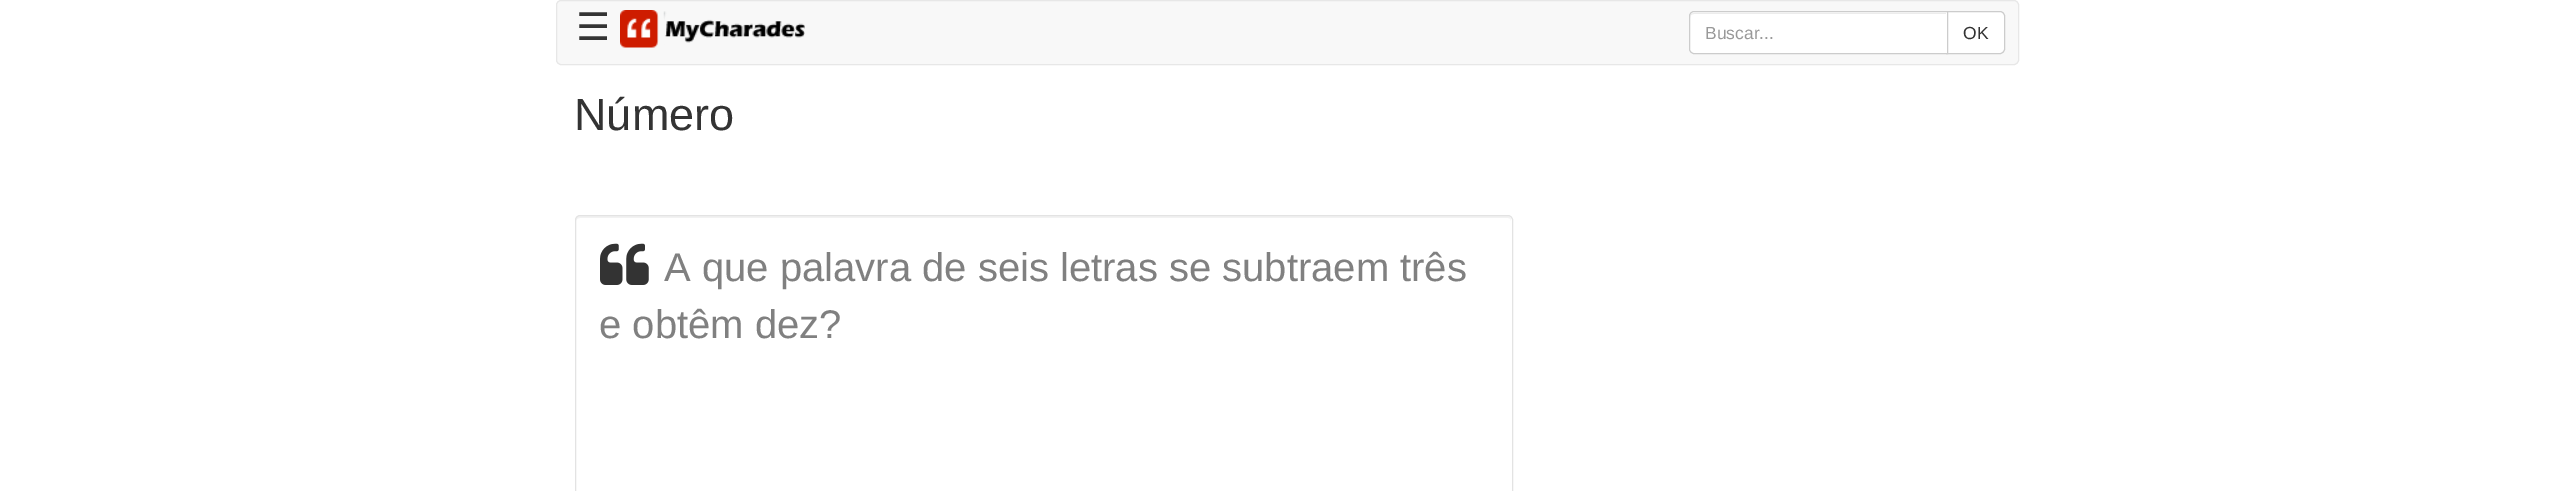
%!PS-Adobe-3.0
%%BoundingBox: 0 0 2573 491
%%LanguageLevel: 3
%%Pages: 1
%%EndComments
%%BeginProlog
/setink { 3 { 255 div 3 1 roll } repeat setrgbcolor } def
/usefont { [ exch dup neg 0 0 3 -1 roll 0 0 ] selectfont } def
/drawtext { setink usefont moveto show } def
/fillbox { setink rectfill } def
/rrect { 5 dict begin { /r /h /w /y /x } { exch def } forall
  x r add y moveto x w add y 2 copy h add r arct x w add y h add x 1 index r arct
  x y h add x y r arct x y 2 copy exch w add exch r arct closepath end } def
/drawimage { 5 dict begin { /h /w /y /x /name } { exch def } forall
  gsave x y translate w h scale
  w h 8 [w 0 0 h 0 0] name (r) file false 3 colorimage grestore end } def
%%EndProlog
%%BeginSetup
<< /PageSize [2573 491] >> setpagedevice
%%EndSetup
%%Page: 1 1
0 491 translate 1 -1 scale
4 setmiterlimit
0 0 2573 491 255 255 255 fillbox
248 248 248 setink
556.5 0.5 1462 64 4.5 rrect gsave fill grestore
231 231 231 setink
stroke
(☰) 576 40 /DejaVuSans-Regular 38 51 51 51 drawtext
(assets/img1.rgb) 620 10 185 38 drawimage
255 255 255 setink
1946.5 11.5 moveto 2000 11.5 lineto 2002.5 11.5 2004.5 13.5 2004.5 16 curveto 2004.5 49 lineto 2004.5 51.5 2002.5 53.5 2000 53.5 curveto 1946.5 53.5 lineto closepath gsave fill grestore
204 204 204 setink
stroke
255 255 255 setink
1694 11 moveto 1948 11 lineto 1948 54 lineto 1694 54 lineto 1691 54 1689 52 1689 49 curveto 1689 16 lineto 1689 13 1691 11 1694 11 curveto closepath fill
236 236 236 setink
1694 14 moveto 1946 14 lineto 1946 13 lineto 1694 13 lineto 1692 13 1690 15 1690 17 curveto 1690 18 lineto 1690 15 1692 14 1694 14 curveto closepath fill
204 204 204 setink
1694 11.5 moveto 1947.5 11.5 lineto 1947.5 53.5 lineto 1694 53.5 lineto 1691.5 53.5 1689.5 51.5 1689.5 49 curveto 1689.5 16 lineto 1689.5 13.5 1691.5 11.5 1694 11.5 curveto closepath stroke
(Buscar...) 1705 39 /LiberationSans-Regular 17.5 153 153 153 drawtext
(OK) 1963 39 /LiberationSans-Regular 17.5 51 51 51 drawtext
(Número) 574 130 /LiberationSans-Regular 45 51 51 51 drawtext
242 242 242 setink
580 218 moveto 1508 218 lineto 1510 218 1511 219 1511 221 curveto 1511 218 1510 216 1507 216 curveto 580 216 lineto 577 216 576 218 576 221 curveto 576 219 578 218 580 218 curveto closepath fill
227 227 227 setink
575.5 215.5 937 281 4.5 rrect stroke
(assets/img2.rgb) 600 243 49 42 drawimage
(A que palavra de seis letras se subtraem três) 664 281 /LiberationSans-Regular 40 128 128 128 drawtext
(e obtêm dez?) 599 338 /LiberationSans-Regular 40 128 128 128 drawtext
showpage
%%EOF
